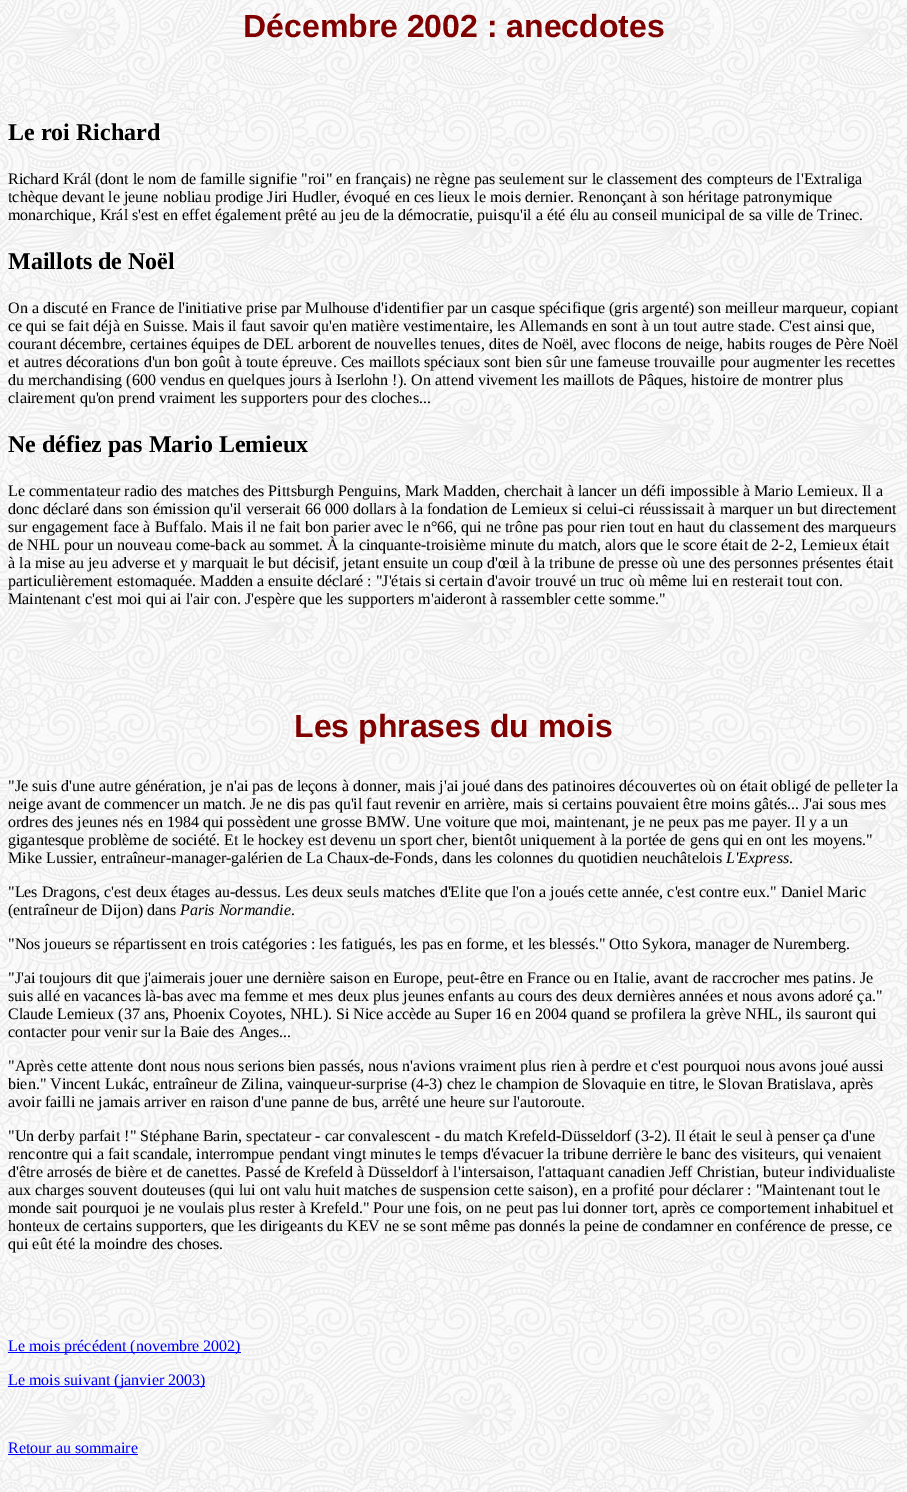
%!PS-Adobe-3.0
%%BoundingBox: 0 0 907 1492
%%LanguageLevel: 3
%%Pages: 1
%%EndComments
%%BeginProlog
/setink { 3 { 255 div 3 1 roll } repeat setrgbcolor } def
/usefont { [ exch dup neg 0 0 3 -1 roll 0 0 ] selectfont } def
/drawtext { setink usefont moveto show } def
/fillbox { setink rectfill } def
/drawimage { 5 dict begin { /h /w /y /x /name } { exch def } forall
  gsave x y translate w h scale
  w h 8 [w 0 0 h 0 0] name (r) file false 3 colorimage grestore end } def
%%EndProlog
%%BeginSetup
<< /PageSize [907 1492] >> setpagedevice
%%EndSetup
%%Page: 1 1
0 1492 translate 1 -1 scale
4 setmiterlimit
0 0 907 1492 255 255 255 fillbox
(assets/img1.rgb) 0 0 907 1492 drawimage
(Décembre 2002 : anecdotes) 243 37 /LiberationSans-Bold 32 128 0 0 drawtext
(Le roi Richard) 8 140 /LiberationSerif-Bold 24 0 0 0 drawtext
(Richard Král \(dont le nom de famille signifie "roi" en français\) ne règne pas seulement sur le classement des compteurs de l'Extraliga) 8 184 /LiberationSerif-Regular 16 0 0 0 drawtext
(tchèque devant le jeune nobliau prodige Jiri Hudler, évoqué en ces lieux le mois dernier. Renonçant à son héritage patronymique) 8 202 /LiberationSerif-Regular 16 0 0 0 drawtext
(monarchique, Král s'est en effet également prêté au jeu de la démocratie, puisqu'il a été élu au conseil municipal de sa ville de Trinec.) 8 220 /LiberationSerif-Regular 16 0 0 0 drawtext
(Maillots de Noël) 8 269 /LiberationSerif-Bold 24 0 0 0 drawtext
(On a discuté en France de l'initiative prise par Mulhouse d'identifier par un casque spécifique \(gris argenté\) son meilleur marqueur, copiant) 8 313 /LiberationSerif-Regular 16 0 0 0 drawtext
(ce qui se fait déjà en Suisse. Mais il faut savoir qu'en matière vestimentaire, les Allemands en sont à un tout autre stade. C'est ainsi que,) 8 331 /LiberationSerif-Regular 16 0 0 0 drawtext
(courant décembre, certaines équipes de DEL arborent de nouvelles tenues, dites de Noël, avec flocons de neige, habits rouges de Père Noël) 8 349 /LiberationSerif-Regular 16 0 0 0 drawtext
(et autres décorations d'un bon goût à toute épreuve. Ces maillots spéciaux sont bien sûr une fameuse trouvaille pour augmenter les recettes) 8 367 /LiberationSerif-Regular 16 0 0 0 drawtext
(du merchandising \(600 vendus en quelques jours à Iserlohn !\). On attend vivement les maillots de Pâques, histoire de montrer plus) 8 385 /LiberationSerif-Regular 16 0 0 0 drawtext
(clairement qu'on prend vraiment les supporters pour des cloches...) 8 403 /LiberationSerif-Regular 16 0 0 0 drawtext
(Ne défiez pas Mario Lemieux) 8 452 /LiberationSerif-Bold 24 0 0 0 drawtext
(Le commentateur radio des matches des Pittsburgh Penguins, Mark Madden, cherchait à lancer un défi impossible à Mario Lemieux. Il a) 8 496 /LiberationSerif-Regular 16 0 0 0 drawtext
(donc déclaré dans son émission qu'il verserait 66 000 dollars à la fondation de Lemieux si celui-ci réussissait à marquer un but directement) 8 514 /LiberationSerif-Regular 16 0 0 0 drawtext
(sur engagement face à Buffalo. Mais il ne fait bon parier avec le n°66, qui ne trône pas pour rien tout en haut du classement des marqueurs) 8 532 /LiberationSerif-Regular 16 0 0 0 drawtext
(de NHL pour un nouveau come-back au sommet. À la cinquante-troisième minute du match, alors que le score était de 2-2, Lemieux était) 8 550 /LiberationSerif-Regular 16 0 0 0 drawtext
(à la mise au jeu adverse et y marquait le but décisif, jetant ensuite un coup d'œil à la tribune de presse où une des personnes présentes était) 8 568 /LiberationSerif-Regular 16 0 0 0 drawtext
(particulièrement estomaquée. Madden a ensuite déclaré : "J'étais si certain d'avoir trouvé un truc où même lui en resterait tout con.) 8 586 /LiberationSerif-Regular 16 0 0 0 drawtext
(Maintenant c'est moi qui ai l'air con. J'espère que les supporters m'aideront à rassembler cette somme.") 8 604 /LiberationSerif-Regular 16 0 0 0 drawtext
(Les phrases du mois) 294 737 /LiberationSans-Bold 32 128 0 0 drawtext
("Je suis d'une autre génération, je n'ai pas de leçons à donner, mais j'ai joué dans des patinoires découvertes où on était obligé de pelleter la) 8 791 /LiberationSerif-Regular 16 0 0 0 drawtext
(neige avant de commencer un match. Je ne dis pas qu'il faut revenir en arrière, mais si certains pouvaient être moins gâtés... J'ai sous mes) 8 809 /LiberationSerif-Regular 16 0 0 0 drawtext
(ordres des jeunes nés en 1984 qui possèdent une grosse BMW. Une voiture que moi, maintenant, je ne peux pas me payer. Il y a un) 8 827 /LiberationSerif-Regular 16 0 0 0 drawtext
(gigantesque problème de société. Et le hockey est devenu un sport cher, bientôt uniquement à la portée de gens qui en ont les moyens.") 8 845 /LiberationSerif-Regular 16 0 0 0 drawtext
(Mike Lussier, entraîneur-manager-galérien de La Chaux-de-Fonds, dans les colonnes du quotidien neuchâtelois) 8 863 /LiberationSerif-Regular 16 0 0 0 drawtext
(L'Express) 726 863 /LiberationSerif-Italic 16 0 0 0 drawtext
(.) 789 863 /LiberationSerif-Regular 16 0 0 0 drawtext
("Les Dragons, c'est deux étages au-dessus. Les deux seuls matches d'Elite que l'on a joués cette année, c'est contre eux." Daniel Maric) 8 897 /LiberationSerif-Regular 16 0 0 0 drawtext
(\(entraîneur de Dijon\) dans) 8 915 /LiberationSerif-Regular 16 0 0 0 drawtext
(Paris Normandie) 180 915 /LiberationSerif-Italic 16 0 0 0 drawtext
(.) 291 915 /LiberationSerif-Regular 16 0 0 0 drawtext
("Nos joueurs se répartissent en trois catégories : les fatigués, les pas en forme, et les blessés." Otto Sykora, manager de Nuremberg.) 8 949 /LiberationSerif-Regular 16 0 0 0 drawtext
("J'ai toujours dit que j'aimerais jouer une dernière saison en Europe, peut-être en France ou en Italie, avant de raccrocher mes patins. Je) 8 983 /LiberationSerif-Regular 16 0 0 0 drawtext
(suis allé en vacances là-bas avec ma femme et mes deux plus jeunes enfants au cours des deux dernières années et nous avons adoré ça.") 8 1001 /LiberationSerif-Regular 16 0 0 0 drawtext
(Claude Lemieux \(37 ans, Phoenix Coyotes, NHL\). Si Nice accède au Super 16 en 2004 quand se profilera la grève NHL, ils sauront qui) 8 1019 /LiberationSerif-Regular 16 0 0 0 drawtext
(contacter pour venir sur la Baie des Anges...) 8 1037 /LiberationSerif-Regular 16 0 0 0 drawtext
("Après cette attente dont nous nous serions bien passés, nous n'avions vraiment plus rien à perdre et c'est pourquoi nous avons joué aussi) 8 1071 /LiberationSerif-Regular 16 0 0 0 drawtext
(bien." Vincent Lukác, entraîneur de Zilina, vainqueur-surprise \(4-3\) chez le champion de Slovaquie en titre, le Slovan Bratislava, après) 8 1089 /LiberationSerif-Regular 16 0 0 0 drawtext
(avoir failli ne jamais arriver en raison d'une panne de bus, arrêté une heure sur l'autoroute.) 8 1107 /LiberationSerif-Regular 16 0 0 0 drawtext
("Un derby parfait !" Stéphane Barin, spectateur - car convalescent - du match Krefeld-Düsseldorf \(3-2\). Il était le seul à penser ça d'une) 8 1141 /LiberationSerif-Regular 16 0 0 0 drawtext
(rencontre qui a fait scandale, interrompue pendant vingt minutes le temps d'évacuer la tribune derrière le banc des visiteurs, qui venaient) 8 1159 /LiberationSerif-Regular 16 0 0 0 drawtext
(d'être arrosés de bière et de canettes. Passé de Krefeld à Düsseldorf à l'intersaison, l'attaquant canadien Jeff Christian, buteur individualiste) 8 1177 /LiberationSerif-Regular 16 0 0 0 drawtext
(aux charges souvent douteuses \(qui lui ont valu huit matches de suspension cette saison\), en a profité pour déclarer : "Maintenant tout le) 8 1195 /LiberationSerif-Regular 16 0 0 0 drawtext
(monde sait pourquoi je ne voulais plus rester à Krefeld." Pour une fois, on ne peut pas lui donner tort, après ce comportement inhabituel et) 8 1213 /LiberationSerif-Regular 16 0 0 0 drawtext
(honteux de certains supporters, que les dirigeants du KEV ne se sont même pas donnés la peine de condamner en conférence de presse, ce) 8 1231 /LiberationSerif-Regular 16 0 0 0 drawtext
(qui eût été la moindre des choses.) 8 1249 /LiberationSerif-Regular 16 0 0 0 drawtext
8 1352 233 1 0 0 255 fillbox
(Le mois précédent \(novembre 2002\)) 8 1351 /LiberationSerif-Regular 16 0 0 255 drawtext
8 1386 197 1 0 0 255 fillbox
(Le mois suivant \(janvier 2003\)) 8 1385 /LiberationSerif-Regular 16 0 0 255 drawtext
(Retour au sommaire) 8 1453 /LiberationSerif-Regular 16 0 0 255 drawtext
8 1454 130 1 0 0 255 fillbox
showpage
%%EOF
